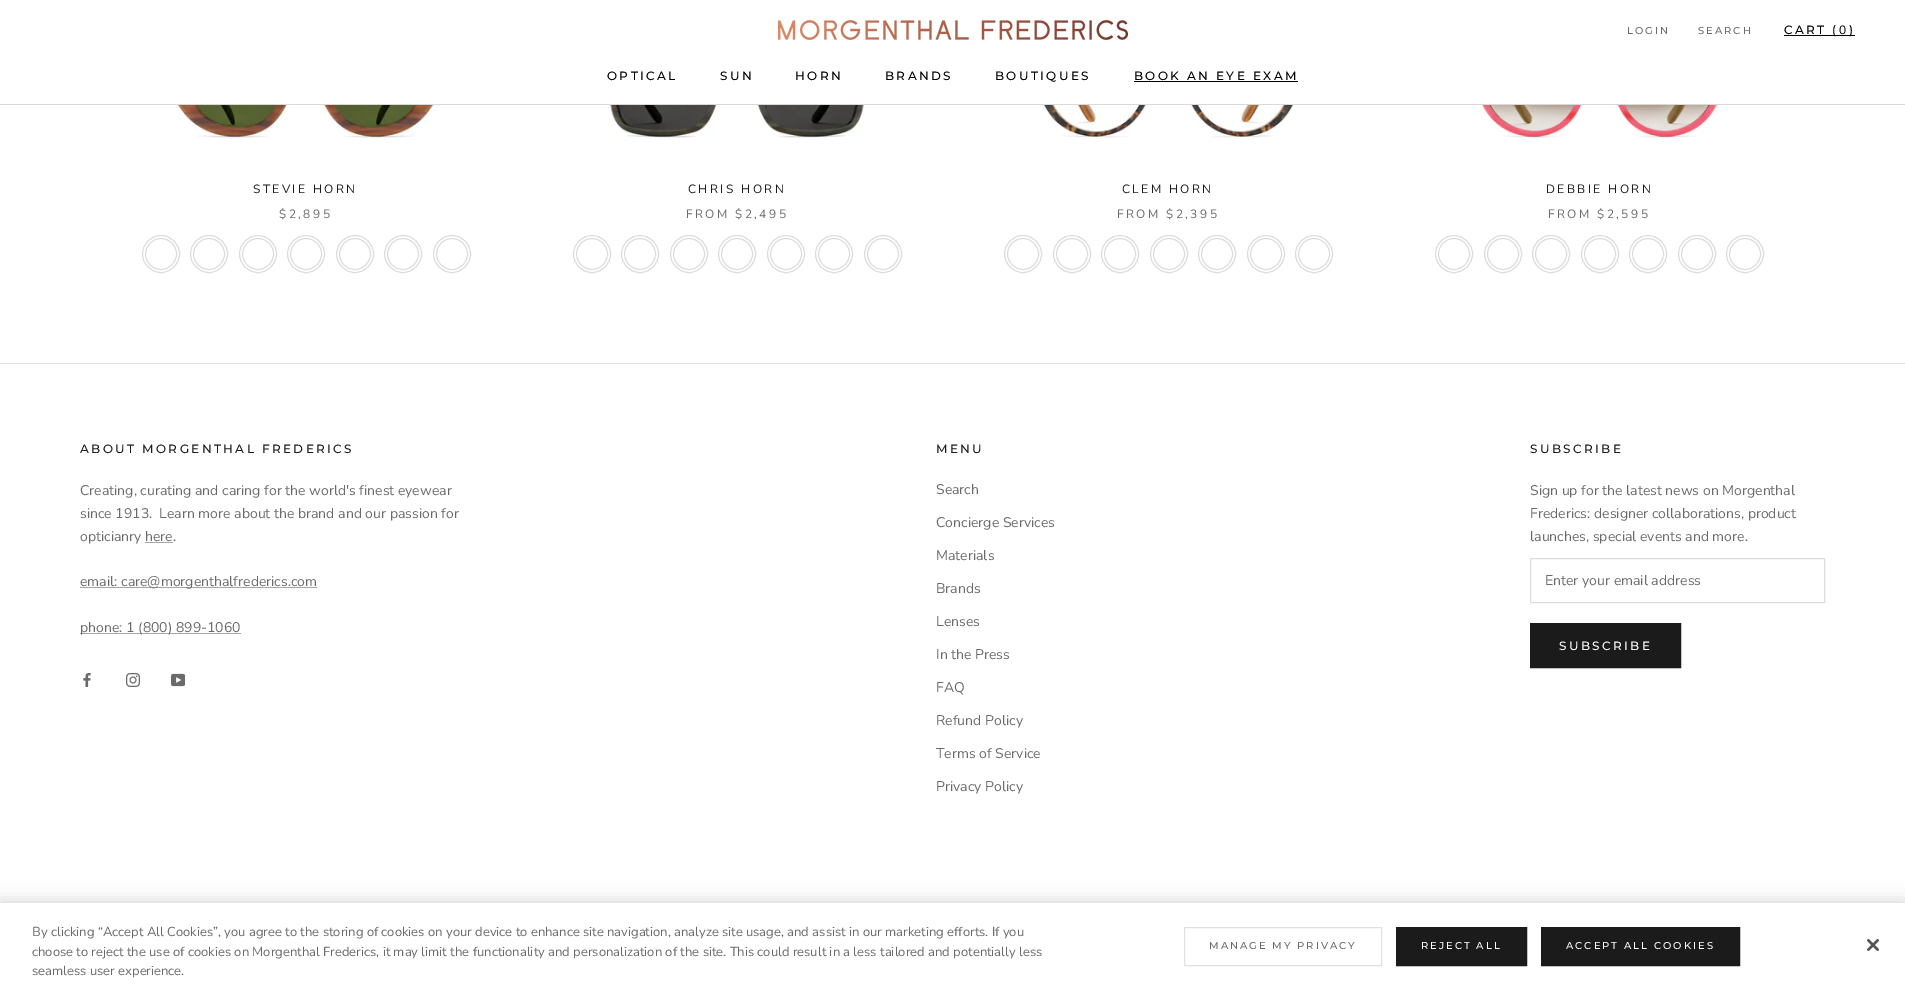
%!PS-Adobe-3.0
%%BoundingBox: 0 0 1905 992
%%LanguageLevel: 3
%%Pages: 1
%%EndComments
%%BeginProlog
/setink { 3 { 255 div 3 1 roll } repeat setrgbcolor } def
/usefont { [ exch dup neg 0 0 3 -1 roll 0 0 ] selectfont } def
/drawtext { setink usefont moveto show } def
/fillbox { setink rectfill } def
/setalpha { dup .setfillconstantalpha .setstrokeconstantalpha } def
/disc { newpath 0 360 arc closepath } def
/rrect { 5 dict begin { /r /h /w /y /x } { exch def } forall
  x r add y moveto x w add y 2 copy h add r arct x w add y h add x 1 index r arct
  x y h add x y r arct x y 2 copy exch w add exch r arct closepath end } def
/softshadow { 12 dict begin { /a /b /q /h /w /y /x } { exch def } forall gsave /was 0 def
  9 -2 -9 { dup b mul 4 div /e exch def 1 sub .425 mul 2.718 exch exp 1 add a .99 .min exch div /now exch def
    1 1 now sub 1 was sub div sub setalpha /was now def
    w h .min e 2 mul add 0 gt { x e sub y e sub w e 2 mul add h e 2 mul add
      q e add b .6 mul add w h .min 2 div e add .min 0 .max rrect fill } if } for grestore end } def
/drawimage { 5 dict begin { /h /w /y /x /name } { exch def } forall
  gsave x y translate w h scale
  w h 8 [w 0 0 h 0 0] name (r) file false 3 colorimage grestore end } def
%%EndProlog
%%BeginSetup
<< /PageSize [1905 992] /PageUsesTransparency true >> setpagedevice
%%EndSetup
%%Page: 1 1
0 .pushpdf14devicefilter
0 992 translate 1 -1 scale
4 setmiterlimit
0 0 1905 992 255 255 255 fillbox
0 104 1905 1 217 217 217 fillbox
(assets/img1.rgb) 778 20 350 20 drawimage
/Montserrat-Medium 10 usefont
106 106 106 setink
1627 34 moveto 2 0 (LOGIN) ashow
1698 34 moveto 2 0 (SEARCH) ashow
1784 35 71 1 0 0 0 fillbox
/Montserrat-Medium 12 usefont
1784 34 moveto 2.4 0 (CART \() ashow
/NunitoSans-Regular 12 usefont
1839 34 moveto 2.4 0 (0) ashow
/Montserrat-Medium 12 usefont
1849 34 moveto 2.4 0 (\)) ashow
607 80 moveto 2.4 0 (OPTICAL) ashow
720 80 moveto 2.4 0 (SUN) ashow
795 80 moveto 2.4 0 (HORN) ashow
885 80 moveto 2.4 0 (BRANDS) ashow
995 80 moveto 2.4 0 (BOUTIQUES) ashow
1134 80 moveto 2.4 0 (BOOK AN EYE EXAM) ashow
1134 81 164 1 0 0 0 fillbox
(assets/img2.rgb) 159 105 291 34 drawimage
/NunitoSans-Regular 12 usefont
28 27 27 setink
253 193 moveto 2.4 0 (STEVIE HORN) ashow
106 106 106 setink
279 218 moveto 2.4 0 ($2,895) ashow
221 221 221 setink
161 254 18.5 disc stroke
161 254 15.5 disc stroke
209 254 18.5 disc stroke
209 254 15.5 disc stroke
258 254 18.5 disc stroke
258 254 15.5 disc stroke
306 254 18.5 disc stroke
306 254 15.5 disc stroke
355 254 18.5 disc stroke
355 254 15.5 disc stroke
403 254 18.5 disc stroke
403 254 15.5 disc stroke
452 254 18.5 disc stroke
452 254 15.5 disc stroke
(assets/img3.rgb) 592 105 290 34 drawimage
28 27 27 setink
688 193 moveto 2.4 0 (CHRIS HORN) ashow
106 106 106 setink
686 218 moveto 2.4 0 (FROM $2,495) ashow
221 221 221 setink
592 254 18.5 disc stroke
592 254 15.5 disc stroke
640 254 18.5 disc stroke
640 254 15.5 disc stroke
689 254 18.5 disc stroke
689 254 15.5 disc stroke
737 254 18.5 disc stroke
737 254 15.5 disc stroke
786 254 18.5 disc stroke
786 254 15.5 disc stroke
834 254 18.5 disc stroke
834 254 15.5 disc stroke
883 254 18.5 disc stroke
883 254 15.5 disc stroke
(assets/img4.rgb) 1026 105 285 34 drawimage
28 27 27 setink
1122 193 moveto 2.4 0 (CLEM HORN) ashow
106 106 106 setink
1117 218 moveto 2.4 0 (FROM $2,395) ashow
221 221 221 setink
1023 254 18.5 disc stroke
1023 254 15.5 disc stroke
1072 254 18.5 disc stroke
1072 254 15.5 disc stroke
1120 254 18.5 disc stroke
1120 254 15.5 disc stroke
1169 254 18.5 disc stroke
1169 254 15.5 disc stroke
1217 254 18.5 disc stroke
1217 254 15.5 disc stroke
1266 254 18.5 disc stroke
1266 254 15.5 disc stroke
1314 254 18.5 disc stroke
1314 254 15.5 disc stroke
(assets/img5.rgb) 1453 105 293 35 drawimage
28 27 27 setink
1546 193 moveto 2.4 0 (DEBBIE HORN) ashow
106 106 106 setink
1548 218 moveto 2.4 0 (FROM $2,595) ashow
221 221 221 setink
1454 254 18.5 disc stroke
1454 254 15.5 disc stroke
1503 254 18.5 disc stroke
1503 254 15.5 disc stroke
1551 254 18.5 disc stroke
1551 254 15.5 disc stroke
1600 254 18.5 disc stroke
1600 254 15.5 disc stroke
1648 254 18.5 disc stroke
1648 254 15.5 disc stroke
1697 254 18.5 disc stroke
1697 254 15.5 disc stroke
1745 254 18.5 disc stroke
1745 254 15.5 disc stroke
0 363 1905 1 221 221 221 fillbox
/Montserrat-Medium 12 usefont
28 27 27 setink
80 453 moveto 2.4 0 (ABOUT MORGENTHAL FREDERICS) ashow
(Creating, curating and caring for the world's finest eyewear) 80 495 /NunitoSans-Regular 14 106 106 106 drawtext
(since 1913.  Learn more about the brand and our passion for) 80 518 /NunitoSans-Regular 14 106 106 106 drawtext
(opticianry here.) 80 541 /NunitoSans-Regular 14 106 106 106 drawtext
145 542 28 1 166 166 166 fillbox
80 587 237 1 166 166 166 fillbox
(email: care@morgenthalfrederics.com) 80 586 /NunitoSans-Regular 14 106 106 106 drawtext
80 633 161 1 166 166 166 fillbox
(phone: 1 \(800\) 899-1060) 80 632 /NunitoSans-Regular 14 106 106 106 drawtext
(assets/img6.rgb) 83 673 8 14 drawimage
(assets/img7.rgb) 126 673 14 14 drawimage
(assets/img8.rgb) 171 673 14 14 drawimage
/Montserrat-Medium 12 usefont
28 27 27 setink
936 453 moveto 2.4 0 (MENU) ashow
(Search) 936 494 /NunitoSans-Regular 14 106 106 106 drawtext
(Concierge Services) 936 527 /NunitoSans-Regular 14 106 106 106 drawtext
(Materials) 936 560 /NunitoSans-Regular 14 106 106 106 drawtext
(Brands) 936 593 /NunitoSans-Regular 14 106 106 106 drawtext
(Lenses) 936 626 /NunitoSans-Regular 14 106 106 106 drawtext
(In the Press) 936 659 /NunitoSans-Regular 14 106 106 106 drawtext
(FAQ) 936 692 /NunitoSans-Regular 14 106 106 106 drawtext
(Refund Policy) 936 725 /NunitoSans-Regular 14 106 106 106 drawtext
(Terms of Service) 936 758 /NunitoSans-Regular 14 106 106 106 drawtext
(Privacy Policy) 936 791 /NunitoSans-Regular 14 106 106 106 drawtext
/Montserrat-Medium 12 usefont
28 27 27 setink
1530 453 moveto 2.4 0 (SUBSCRIBE) ashow
(Sign up for the latest news on Morgenthal) 1530 495 /NunitoSans-Regular 14 106 106 106 drawtext
(Frederics: designer collaborations, product) 1530 518 /NunitoSans-Regular 14 106 106 106 drawtext
(launches, special events and more.) 1530 541 /NunitoSans-Regular 14 106 106 106 drawtext
221 221 221 setink
1530.5 558.5 294 44 rectstroke
(Enter your email address) 1545 585 /NunitoSans-Regular 14 106 106 106 drawtext
28 27 27 setink
1530.5 623.5 150 44 rectstroke
1531 624 149 43 28 27 27 fillbox
/Montserrat-Medium 12 usefont
255 255 255 setink
1559 650 moveto 2.4 0 (SUBSCRIBE) ashow
0 0 0 setink
0 903 1905 89 0 9 0.2 softshadow
0 903 1905 89 255 255 255 fillbox
(By clicking “Accept All Cookies”, you agree to the storing of cookies on your device to enhance site navigation, analyze site usage, and assist in our marketing efforts. If you) 32 936 /NunitoSans-Regular 13 106 106 106 drawtext
(choose to reject the use of cookies on Morgenthal Frederics, it may limit the functionality and personalization of the site. This could result in a less tailored and potentially less) 32 956 /NunitoSans-Regular 13 106 106 106 drawtext
(seamless user experience.) 32 975 /NunitoSans-Regular 13 106 106 106 drawtext
225 225 225 setink
1184.5 927.5 197 38 rectstroke
/Montserrat-Medium 10 usefont
106 106 106 setink
1209 949 moveto 2 0 (MANAGE MY PRIVACY) ashow
28 27 27 setink
1396.5 927.5 130 38 rectstroke
1397 928 129 37 28 27 27 fillbox
255 255 255 setink
1421 949 moveto 2 0 (REJECT ALL) ashow
28 27 27 setink
1541.5 927.5 198 38 rectstroke
1542 928 197 37 28 27 27 fillbox
255 255 255 setink
1566 949 moveto 2 0 (ACCEPT ALL COOKIES) ashow
(assets/img9.rgb) 1867 939 12 12 drawimage
.poppdf14devicefilter showpage
%%EOF
